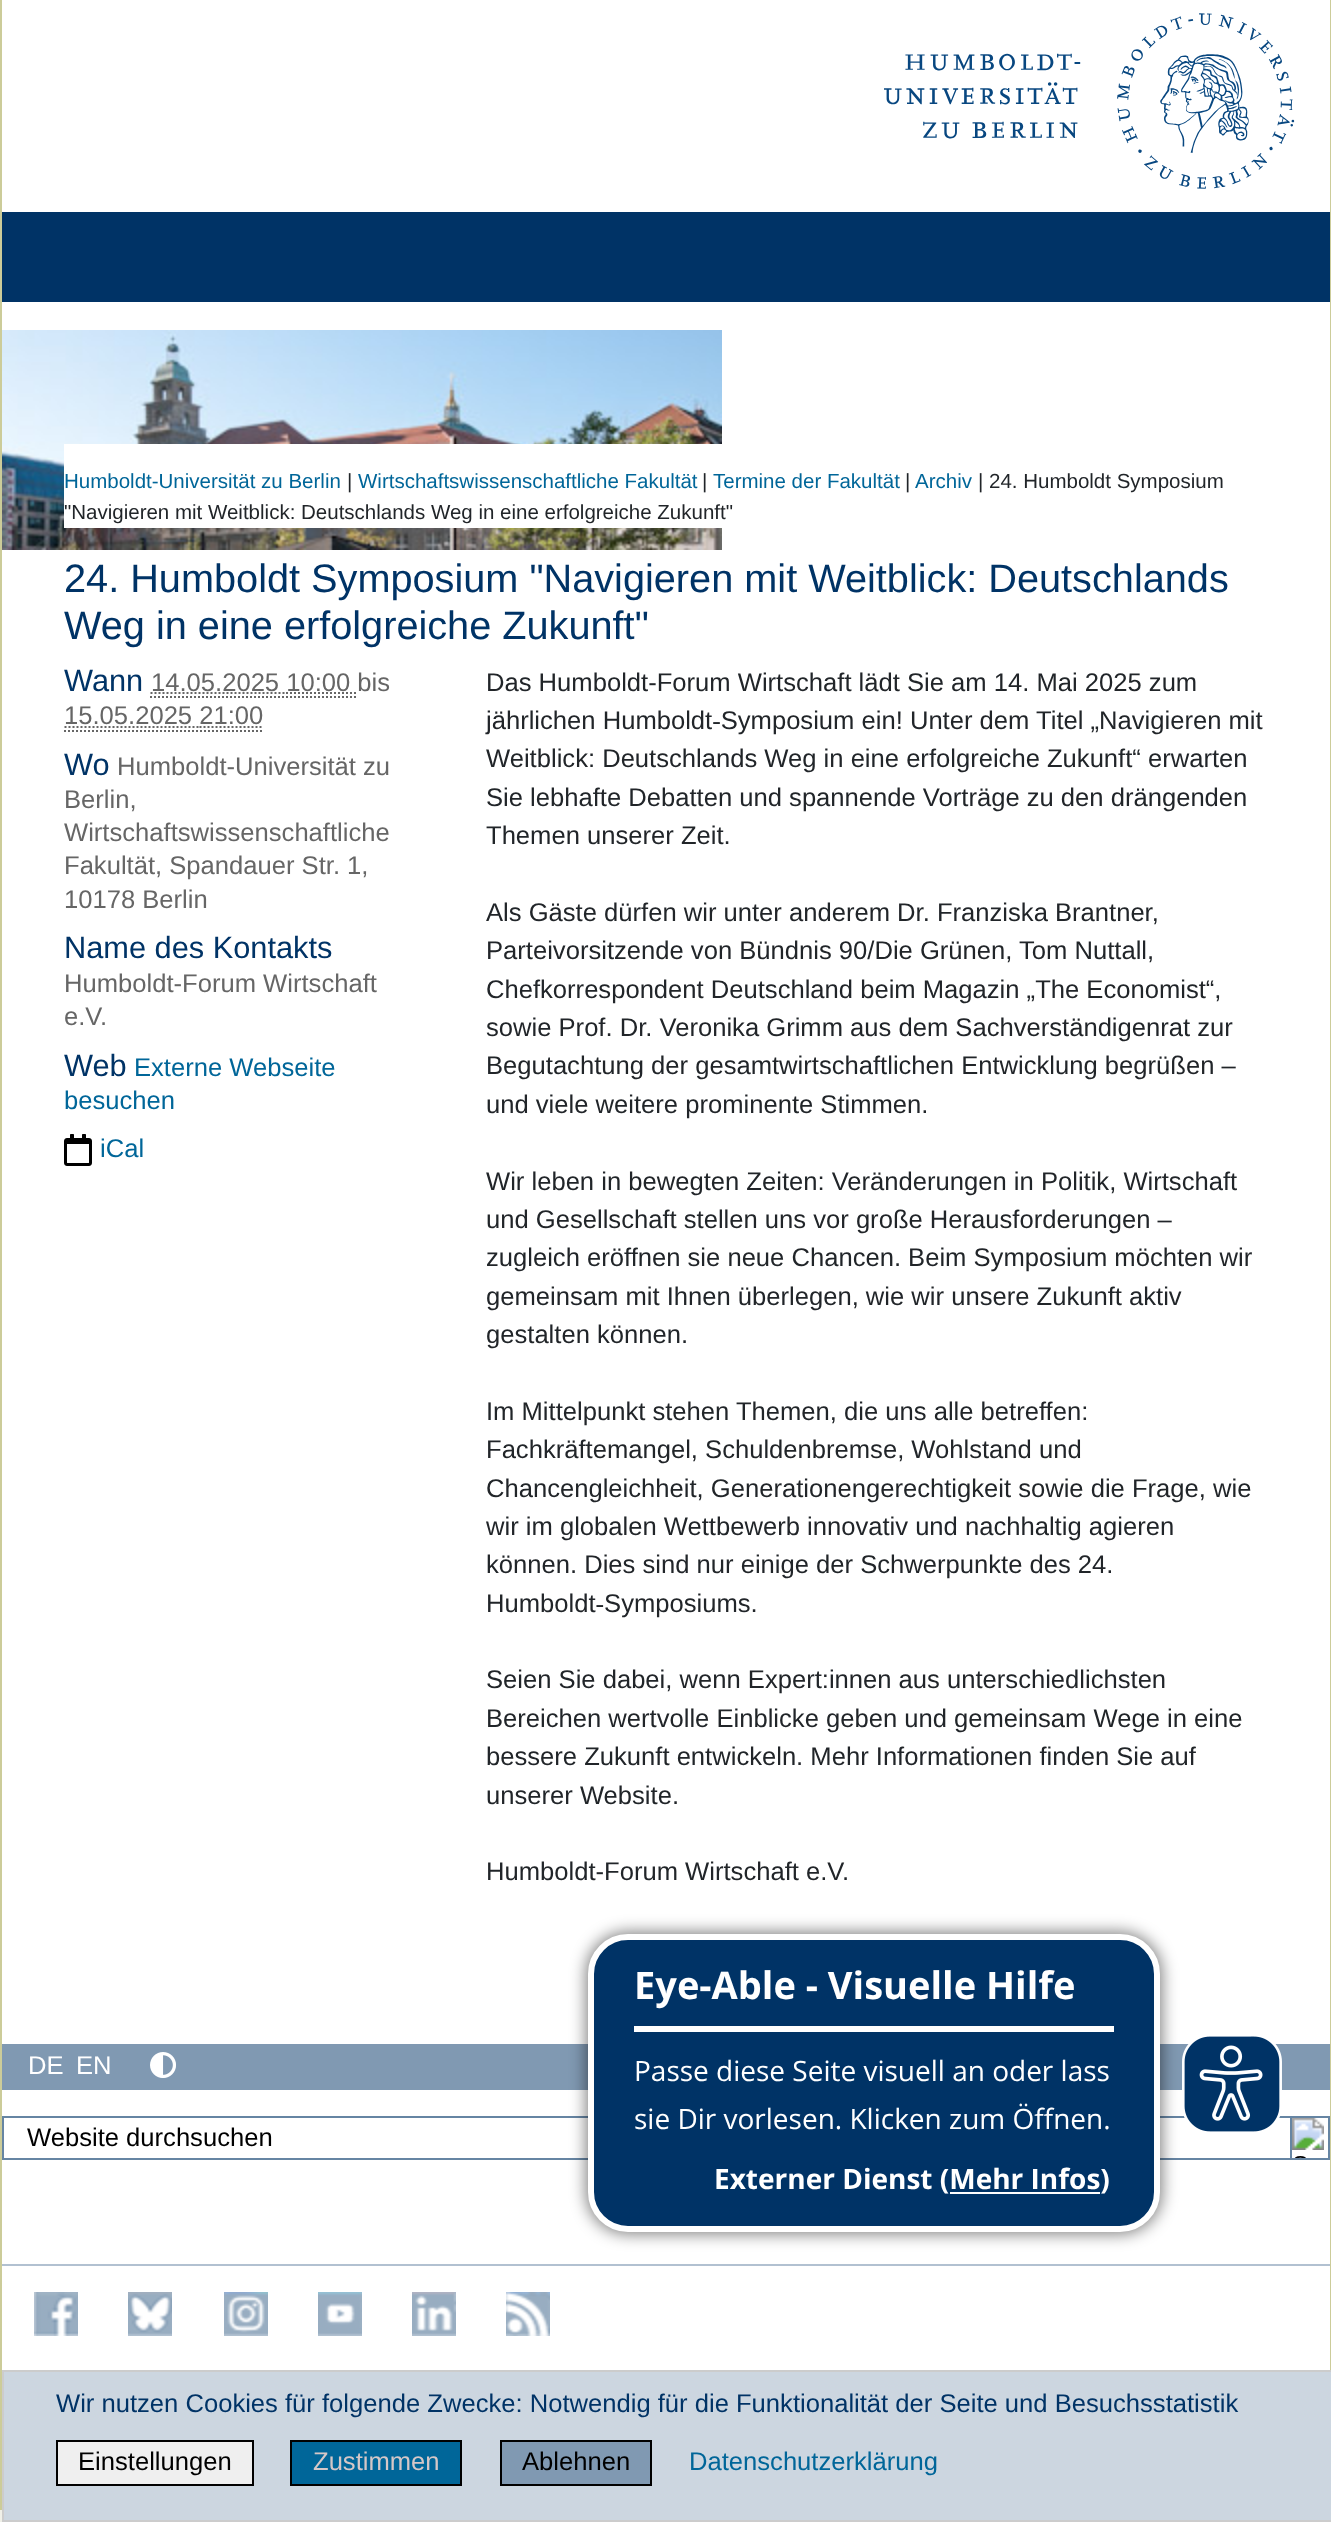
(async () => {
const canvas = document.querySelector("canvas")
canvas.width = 1331
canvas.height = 2522
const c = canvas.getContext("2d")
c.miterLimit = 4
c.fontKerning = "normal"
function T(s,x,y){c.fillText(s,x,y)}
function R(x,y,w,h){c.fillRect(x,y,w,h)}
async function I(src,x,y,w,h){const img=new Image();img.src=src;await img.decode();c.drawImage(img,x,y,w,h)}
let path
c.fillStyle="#f0f0e8"
R(0,0,1331,2522)
c.fillStyle="#fff"
R(2,0,1328,2370)
await I("1.png",884,13,411,176)
c.fillStyle="#036"
R(2,212,1328,90)
await I("2.png",2,330,720,220)
c.fillStyle="#cc9"
R(1330,0,1,2370)
R(0,0,2,2510)
c.fillStyle="#fff"
R(64,444,658,84)
c.font="20.5px Liberation Sans"
c.fillStyle="#069"
T("Humboldt-Universität zu Berlin",64,488)
c.fillStyle="#212529"
T("|",347,488)
c.fillStyle="#069"
T("Wirtschaftswissenschaftliche Fakultät",358,488)
c.fillStyle="#212529"
T("|",702,488)
c.fillStyle="#069"
T("Termine der Fakultät",713,488)
c.fillStyle="#212529"
T("|",905,488)
c.fillStyle="#069"
T("Archiv",915,488)
c.fillStyle="#212529"
T("| 24. Humboldt Symposium",978,488)
T("\"Navigieren mit Weitblick: Deutschlands Weg in eine erfolgreiche Zukunft\"",64,519)
c.font="39.7px Liberation Sans"
c.fillStyle="#036"
T("24. Humboldt Symposium \"Navigieren mit Weitblick: Deutschlands",64,592)
T("Weg in eine erfolgreiche Zukunft\"",64,639)
c.font="30.75px Liberation Sans"
T("Wann",64,691)
c.font="25.6px Liberation Sans"
c.fillStyle="#666"
T("14.05.2025 10:00 bis",151,691)
path = new Path2D("M150 697h208")
c.strokeStyle="#666"
c.lineWidth=2
c.setLineDash([2,2])
c.stroke(path)
path = new Path2D("M150.5 693h135.5")
c.stroke(path)
path = new Path2D("M286 693h71")
c.stroke(path)
T("15.05.2025 21:00",64,724)
path = new Path2D("M64 731h200")
c.stroke(path)
path = new Path2D("M64.5 727h135")
c.stroke(path)
path = new Path2D("M199.5 727h64")
c.stroke(path)
c.font="30.75px Liberation Sans"
c.fillStyle="#036"
T("Wo",64,775)
c.font="25.6px Liberation Sans"
c.fillStyle="#666"
T("Humboldt-Universität zu",117,775)
T("Berlin,",64,808)
T("Wirtschaftswissenschaftliche",64,841)
T("Fakultät, Spandauer Str. 1,",64,874)
T("10178 Berlin",64,908)
c.font="30.75px Liberation Sans"
c.fillStyle="#036"
T("Name des Kontakts",64,958)
c.font="25.6px Liberation Sans"
c.fillStyle="#666"
T("Humboldt-Forum Wirtschaft",64,992)
T("e.V.",64,1025)
c.font="30.75px Liberation Sans"
c.fillStyle="#036"
T("Web",64,1076)
c.font="25.6px Liberation Sans"
c.fillStyle="#069"
T("Externe Webseite",134,1076)
T("besuchen",64,1109)
await I("3.png",64,1134,28,32)
T("iCal",100,1157)
c.fillStyle="#212529"
T("Das Humboldt-Forum Wirtschaft lädt Sie am 14. Mai 2025 zum",486,691)
T("jährlichen Humboldt‑Symposium ein! Unter dem Titel „Navigieren mit",486,729)
T("Weitblick: Deutschlands Weg in eine erfolgreiche Zukunft“ erwarten",486,767)
T("Sie lebhafte Debatten und spannende Vorträge zu den drängenden",486,806)
T("Themen unserer Zeit.",486,844)
T("Als Gäste dürfen wir unter anderem Dr. Franziska Brantner,",486,921)
T("Parteivorsitzende von Bündnis 90/Die Grünen, Tom Nuttall,",486,959)
T("Chefkorrespondent Deutschland beim Magazin „The Economist“,",486,998)
T("sowie Prof. Dr. Veronika Grimm aus dem Sachverständigenrat zur",486,1036)
T("Begutachtung der gesamtwirtschaftlichen Entwicklung begrüßen –",486,1074)
T("und viele weitere prominente Stimmen.",486,1113)
T("Wir leben in bewegten Zeiten: Veränderungen in Politik, Wirtschaft",486,1190)
T("und Gesellschaft stellen uns vor große Herausforderungen –",486,1228)
T("zugleich eröffnen sie neue Chancen. Beim Symposium möchten wir",486,1266)
T("gemeinsam mit Ihnen überlegen, wie wir unsere Zukunft aktiv",486,1305)
T("gestalten können.",486,1343)
T("Im Mittelpunkt stehen Themen, die uns alle betreffen:",486,1420)
T("Fachkräftemangel, Schuldenbremse, Wohlstand und",486,1458)
T("Chancengleichheit, Generationengerechtigkeit sowie die Frage, wie",486,1497)
T("wir im globalen Wettbewerb innovativ und nachhaltig agieren",486,1535)
T("können. Dies sind nur einige der Schwerpunkte des 24.",486,1573)
T("Humboldt‑Symposiums.",486,1612)
T("Seien Sie dabei, wenn Expert:innen aus unterschiedlichsten",486,1688)
T("Bereichen wertvolle Einblicke geben und gemeinsam Wege in eine",486,1727)
T("bessere Zukunft entwickeln. Mehr Informationen finden Sie auf",486,1765)
T("unserer Website.",486,1804)
T("Humboldt-Forum Wirtschaft e.V.",486,1880)
c.fillStyle="#8099b2"
R(2,2044,1328,46)
c.fillStyle="#fff"
T("DE",28,2074)
T("EN",76,2074)
await I("4.png",150,2052,26,26)
c.strokeStyle="#6685a3"
c.setLineDash([])
c.strokeRect(3,2117,1326,42)
c.fillStyle="#000"
T("Website durchsuchen",27,2146)
c.strokeRect(1291,2117,38,42)
await I("5.png",1292,2118,32,40)
c.fillStyle="#00000080"
c.filter="blur(8px)"
c.beginPath()
c.roundRect(586,1932,576,302,42)
c.fill()
c.filter="none"
c.fillStyle="#036"
c.beginPath()
c.roundRect(591,1937,566,292,37)
c.fill()
c.strokeStyle="#fff"
c.lineWidth=6
c.stroke()
c.fillStyle="#fff"
R(634,2026,480,6)
c.font="bold 38px Open Sans"
T("Eye-Able - Visuelle Hilfe",634,1999)
c.font="28px Open Sans"
T("Passe diese Seite visuell an oder lass",634,2081)
T("sie Dir vorlesen. Klicken zum Öffnen.",634,2129)
c.font="bold 28px Open Sans"
T("Externer Dienst (Mehr Infos)",714,2189)
R(950,2192,150,2)
await I("6.png",1182,2036,100,96)
c.fillStyle="#b2c1d1"
R(2,2264,1328,2)
await I("7.png",34,2292,44,44)
await I("8.png",128,2292,44,44)
await I("9.png",224,2292,44,44)
await I("10.png",318,2292,44,44)
await I("11.png",412,2292,44,44)
await I("12.png",506,2292,44,44)
c.fillStyle="#ccd6e0"
c.beginPath()
c.rect(3,2371,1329,150)
c.fill()
c.strokeStyle="#ccc"
c.lineWidth=2
c.stroke()
c.font="25.6px Liberation Sans"
c.fillStyle="#036"
T("Wir nutzen Cookies für folgende Zwecke: Notwendig für die Funktionalität der Seite und Besuchsstatistik",56,2412)
c.fillStyle="#efefef"
c.beginPath()
c.rect(57,2441,196,44)
c.fill()
c.strokeStyle="#000"
c.stroke()
c.fillStyle="#000"
T("Einstellungen",78,2470)
c.fillStyle="#069"
c.beginPath()
c.rect(291,2441,170,44)
c.fill()
c.stroke()
c.fillStyle="#d5c7c7"
T("Zustimmen",313,2470)
c.fillStyle="#8099b2"
c.beginPath()
c.rect(501,2441,150,44)
c.fill()
c.stroke()
c.fillStyle="#000"
T("Ablehnen",522,2470)
c.fillStyle="#069"
T("Datenschutzerklärung",689,2470)
})()
